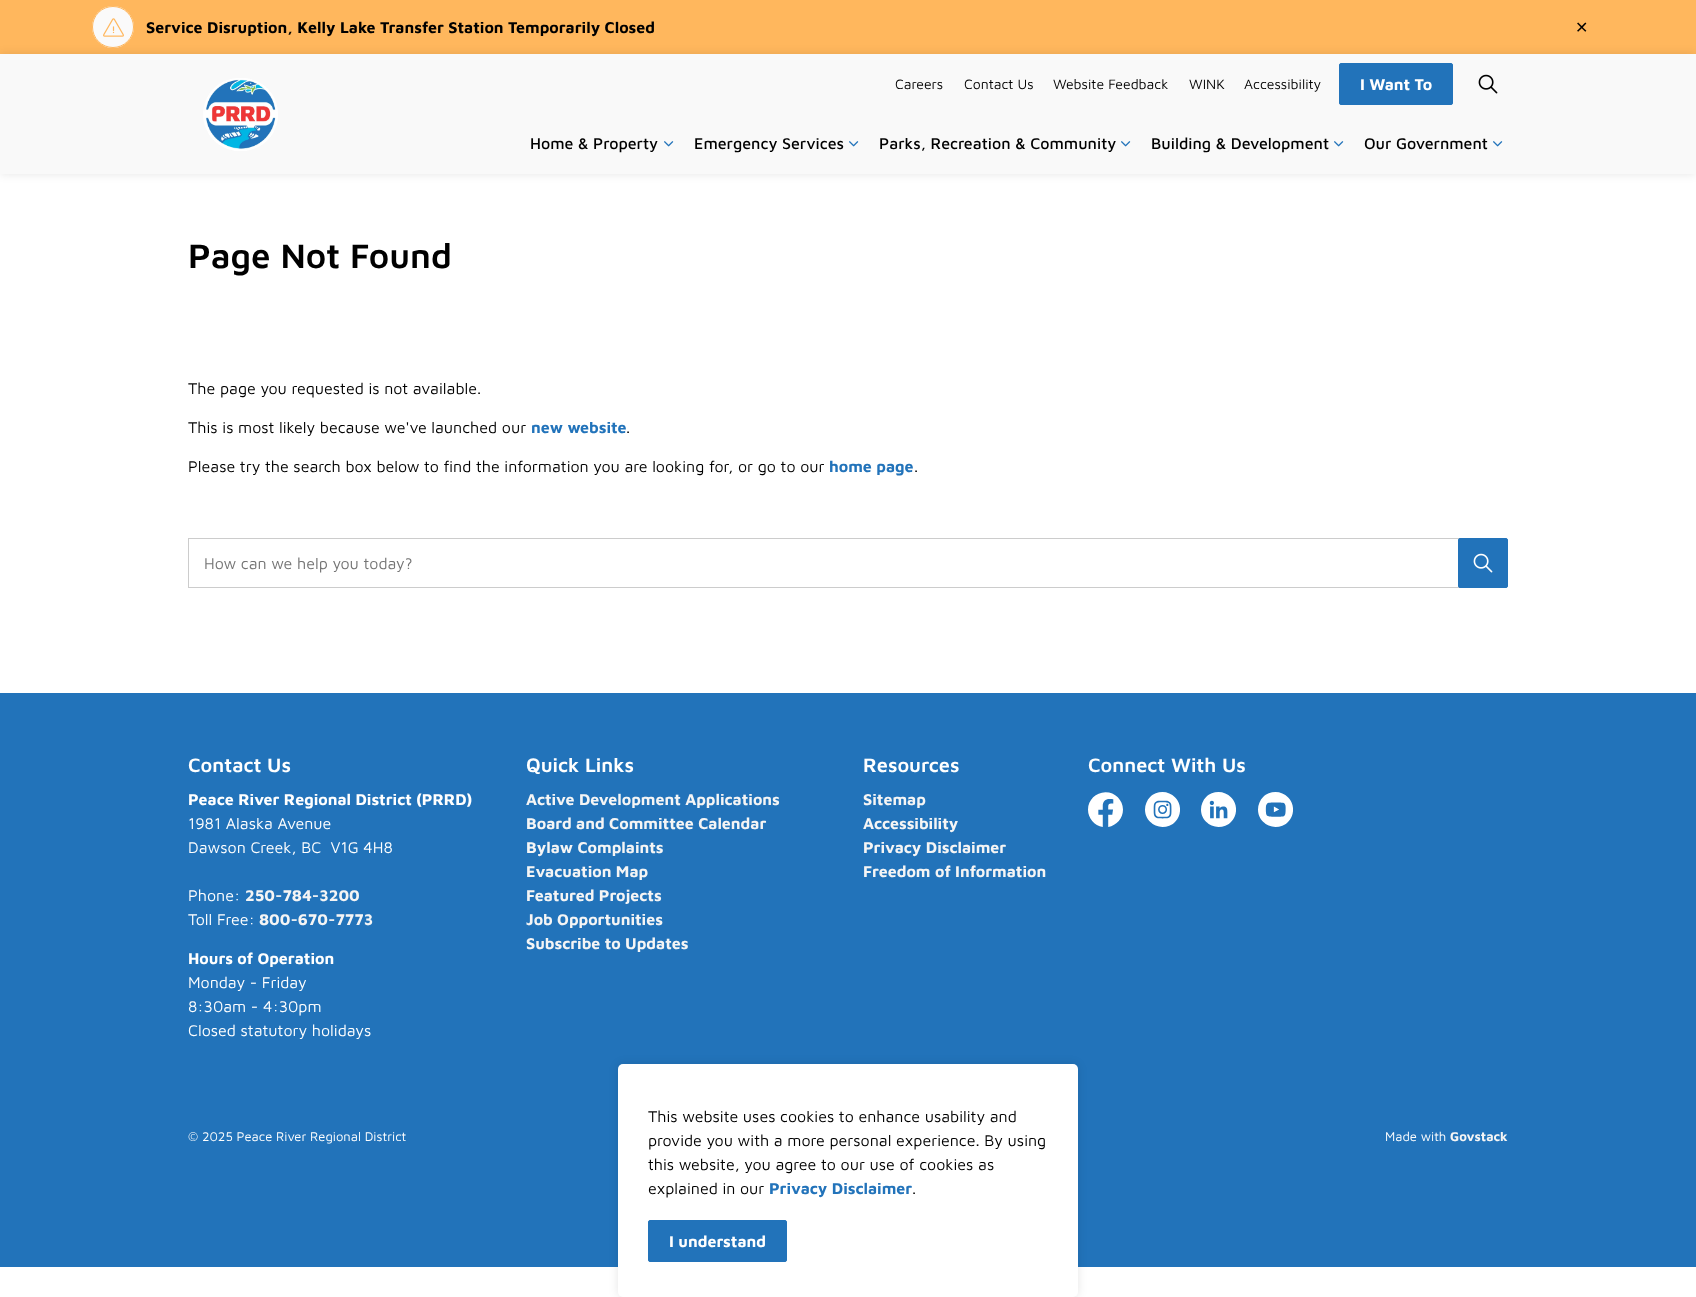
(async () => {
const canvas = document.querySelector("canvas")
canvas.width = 1696
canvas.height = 1297
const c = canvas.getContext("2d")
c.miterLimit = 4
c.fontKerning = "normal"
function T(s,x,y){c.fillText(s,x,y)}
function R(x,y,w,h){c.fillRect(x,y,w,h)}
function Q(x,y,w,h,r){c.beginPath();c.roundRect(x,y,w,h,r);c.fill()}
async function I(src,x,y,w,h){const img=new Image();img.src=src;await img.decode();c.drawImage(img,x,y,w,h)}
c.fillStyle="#fff"
R(0,0,1696,1297)
c.fillStyle="#ffb75d"
R(0,0,1696,54)
c.fillStyle="#fafafa"
c.beginPath()
c.arc(113,27,21,0,7)
c.fill()
await I("1.png",103,18,21,19)
c.beginPath()
c.arc(113,27,20.5,0,7)
c.strokeStyle="#ffb75d"
c.stroke()
c.font="bold 16px Maven Pro"
c.fillStyle="#000"
T("Service Disruption, Kelly Lake Transfer Station Temporarily Closed",146,33)
c.font="16px DejaVu Sans"
T("✕",1575,33)
c.fillStyle="#0000001a"
c.filter="blur(5px)"
c.beginPath()
c.rect(0,54,1696,120)
c.fill()
c.filter="none"
c.fillStyle="#f9f9f9"
R(0,54,1696,120)
await I("2.png",203,78,75,73)
c.font="14px Maven Pro"
c.fillStyle="#000"
T("Careers",895,89)
T("Contact Us",964,89)
T("Website Feedback",1053,89)
T("WINK",1189,89)
T("Accessibility",1244,89)
c.fillStyle="#2273ba"
c.beginPath()
c.roundRect(1339.5,63.5,113,41,1.5)
c.fill()
c.strokeStyle="#2273ba"
c.stroke()
c.font="bold 16px Maven Pro"
c.fillStyle="#fff"
T("I Want To",1360,90)
await I("3.png",1478,74,20,20)
c.font="500 16px Maven Pro"
c.fillStyle="#000"
T("Home & Property",530,149)
await I("4.png",664,141,10,6)
T("Emergency Services",694,149)
await I("4.png",849,141,10,6)
T("Parks, Recreation & Community",879,149)
await I("4.png",1121,141,10,6)
T("Building & Development",1151,149)
await I("4.png",1334,141,10,6)
T("Our Government",1364,149)
await I("4.png",1493,141,10,6)
c.font="600 35px Maven Pro"
T("Page Not Found",188,268)
c.font="16px Maven Pro"
T("The page you requested is not available.",188,394)
T("This is most likely because we've launched our",188,433)
c.font="bold 16px Maven Pro"
c.fillStyle="#2273ba"
T("new website",531,433)
c.font="16px Maven Pro"
c.fillStyle="#000"
T(".",626,433)
T("Please try the search box below to find the information you are looking for, or go to our",188,472)
c.font="bold 16px Maven Pro"
c.fillStyle="#2273ba"
T("home page",829,472)
c.font="16px Maven Pro"
c.fillStyle="#000"
T(".",914,472)
c.strokeStyle="#ccc"
c.strokeRect(188.5,538.5,1306,49)
c.fillStyle="#757575"
T("How can we help you today?",204,569)
c.fillStyle="#2273ba"
c.beginPath()
c.roundRect(1458.5,538.5,49,49,1.5)
c.fill()
c.strokeStyle="#2273ba"
c.stroke()
await I("5.png",1473,553,20,20)
R(0,693,1696,574)
c.font="600 20px Maven Pro"
c.fillStyle="#fff"
T("Contact Us",188,772)
c.font="bold 16px Maven Pro"
T("Peace River Regional District (PRRD)",188,805)
c.font="16px Maven Pro"
T("1981 Alaska Avenue",188,829)
T("Dawson Creek, BC  V1G 4H8",188,853)
T("Phone:",188,901)
c.font="bold 16px Maven Pro"
c.fillStyle="#f5f5f5"
T("250-784-3200",245,901)
c.font="16px Maven Pro"
c.fillStyle="#fff"
T("Toll Free:",188,925)
c.font="bold 16px Maven Pro"
c.fillStyle="#f5f5f5"
T("800-670-7773",259,925)
c.fillStyle="#fff"
T("Hours of Operation",188,964)
c.font="16px Maven Pro"
T("Monday - Friday",188,988)
T("8:30am - 4:30pm",188,1012)
T("Closed statutory holidays",188,1036)
c.font="600 20px Maven Pro"
T("Quick Links",526,772)
c.font="bold 16px Maven Pro"
c.fillStyle="#f5f5f5"
T("Active Development Applications",526,805)
T("Board and Committee Calendar",526,829)
T("Bylaw Complaints",526,853)
T("Evacuation Map",526,877)
T("Featured Projects",526,901)
T("Job Opportunities",526,925)
T("Subscribe to Updates",526,949)
c.font="600 20px Maven Pro"
c.fillStyle="#fff"
T("Resources",863,772)
c.font="bold 16px Maven Pro"
c.fillStyle="#f5f5f5"
T("Sitemap",863,805)
T("Accessibility",863,829)
T("Privacy Disclaimer",863,853)
T("Freedom of Information",863,877)
c.font="600 20px Maven Pro"
c.fillStyle="#fff"
T("Connect With Us",1088,772)
await I("6.png",1088,792,35,35)
await I("7.png",1145,792,35,35)
await I("8.png",1201,792,35,35)
await I("9.png",1258,792,35,35)
c.font="13px Maven Pro"
T("© 2025 Peace River Regional District",188,1141)
T("Made with",1385,1141)
c.font="bold 13px Maven Pro"
c.fillStyle="#f5f5f5"
T("Govstack",1450,1141)
c.fillStyle="#0000001a"
c.filter="blur(5px)"
c.beginPath()
c.roundRect(618,1064,460,233,5)
c.fill()
c.filter="none"
c.fillStyle="#fff"
Q(618,1064,460,233,5)
c.font="16px Maven Pro"
c.fillStyle="#000"
T("This website uses cookies to enhance usability and",648,1122)
T("provide you with a more personal experience. By using",648,1146)
T("this website, you agree to our use of cookies as",648,1170)
T("explained in our",648,1194)
c.font="bold 16px Maven Pro"
c.fillStyle="#2273ba"
T("Privacy Disclaimer",769,1194)
c.font="16px Maven Pro"
c.fillStyle="#000"
T(".",912,1194)
c.fillStyle="#2273ba"
c.beginPath()
c.roundRect(648.5,1220.5,138,41,1.5)
c.fill()
c.stroke()
c.font="bold 16px Maven Pro"
c.fillStyle="#fff"
T("I understand",669,1247)
})()
